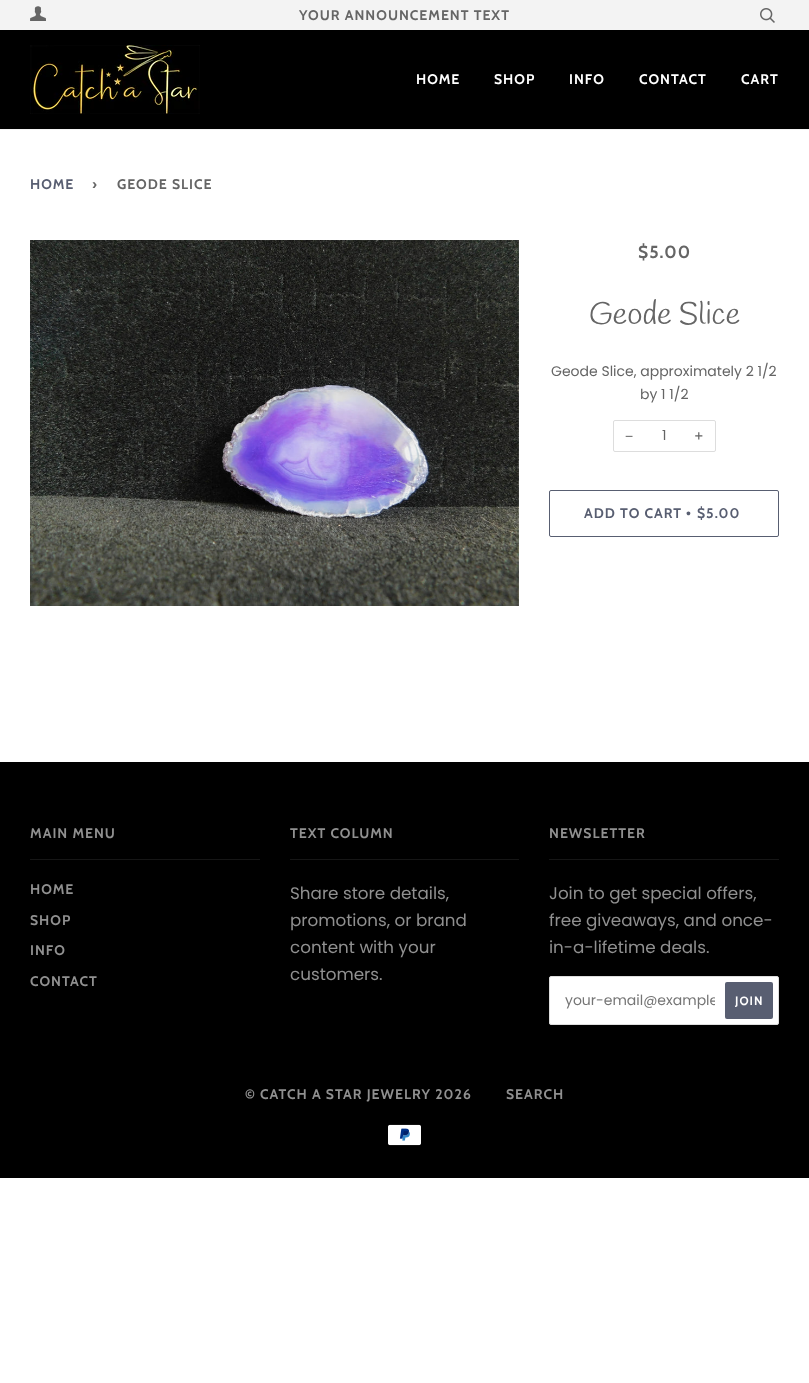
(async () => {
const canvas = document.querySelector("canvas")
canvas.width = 809
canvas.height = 1383
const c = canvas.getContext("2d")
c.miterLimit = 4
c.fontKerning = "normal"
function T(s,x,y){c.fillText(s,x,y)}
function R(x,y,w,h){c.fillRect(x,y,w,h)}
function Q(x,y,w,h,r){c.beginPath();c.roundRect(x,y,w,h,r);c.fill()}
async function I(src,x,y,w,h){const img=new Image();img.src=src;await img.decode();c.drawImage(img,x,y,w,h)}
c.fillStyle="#fff"
R(0,0,809,1383)
c.fillStyle="#f3f3f3"
R(0,0,809,30)
await I("1.png",30,6,16,15)
c.letterSpacing="1px"
c.font="bold 14px Cabin"
c.fillStyle="#656565"
T("YOUR ANNOUNCEMENT TEXT",299,20)
await I("2.png",760,8,15,15)
c.fillStyle="#000"
R(0,30,809,99)
c.fillStyle="#f3f3f3"
R(0,129,809,1)
await I("3.png",30,45,170,69)
c.fillStyle="#fff"
T("HOME",416,84)
T("SHOP",494,84)
T("INFO",569,84)
T("CONTACT",639,84)
T("CART",741,84)
c.fillStyle="#585e71"
T("HOME",30,189)
c.fillStyle="#656565"
T("›",92,189)
T("GEODE SLICE",117,189)
await I("4.png",30,240,489,366)
c.font="bold 17.5px Cabin"
T("$5.00",638,258)
c.letterSpacing="0px"
c.font="31px Handlee"
T("Geode Slice",589,324)
c.font="14px Poppins"
T("Geode Slice, approximately 2 1/2",551,376)
T("by 1 1/2",640,399)
c.beginPath()
c.roundRect(613.5,420.5,102,31,1.5)
c.strokeStyle="#ddd"
c.stroke()
c.font="14px Liberation Sans"
T("−",625,441)
c.font="14px Poppins"
T("1",662,440)
T("+",694,441)
c.beginPath()
c.roundRect(549.5,490.5,229,46,1.5)
c.strokeStyle="#585e71"
c.stroke()
c.letterSpacing="1px"
c.font="bold 14px Cabin"
c.fillStyle="#585e71"
T("ADD TO CART",584,518)
c.font="bold 14px Liberation Serif"
T("•",686,518)
c.font="bold 14px Cabin"
T("$5.00",697,518)
c.fillStyle="#000"
R(0,762,809,416)
c.fillStyle="#909090"
T("MAIN MENU",30,838)
c.fillStyle="#161616"
R(30,859,230,1)
c.fillStyle="#909090"
T("HOME",30,894)
T("SHOP",30,925)
T("INFO",30,955)
T("CONTACT",30,986)
T("TEXT COLUMN",290,838)
c.fillStyle="#161616"
R(290,859,229,1)
c.letterSpacing="0px"
c.font="16.75px Poppins"
c.fillStyle="#909090"
T("Share store details,",290,899)
T("promotions, or brand",290,926)
T("content with your",290,953)
T("customers.",290,980)
c.letterSpacing="1px"
c.font="bold 14px Cabin"
T("NEWSLETTER",549,838)
c.fillStyle="#161616"
R(549,859,230,1)
c.letterSpacing="0px"
c.font="16.75px Poppins"
c.fillStyle="#909090"
T("Join to get special offers,",549,899)
T("free giveaways, and once-",549,926)
T("in-a-lifetime deals.",549,953)
c.fillStyle="#fff"
c.beginPath()
c.roundRect(549.5,976.5,229,48,1.5)
c.fill()
c.strokeStyle="#ddd"
c.stroke()
c.save()
c.beginPath()
c.rect(565,990,150,21)
c.clip()
c.font="14px Poppins"
c.fillStyle="#757575"
T("your-email@example",565,1005)
c.restore()
c.fillStyle="#585e71"
Q(725,982,48,37,2)
c.letterSpacing="1px"
c.font="bold 12px Cabin"
c.fillStyle="#fff"
T("JOIN",735,1005)
c.font="bold 14px Cabin"
c.fillStyle="#909090"
T("© CATCH A STAR JEWELRY 2026",245,1099)
T("SEARCH",506,1099)
await I("5.png",388,1124,33,22)
})()
